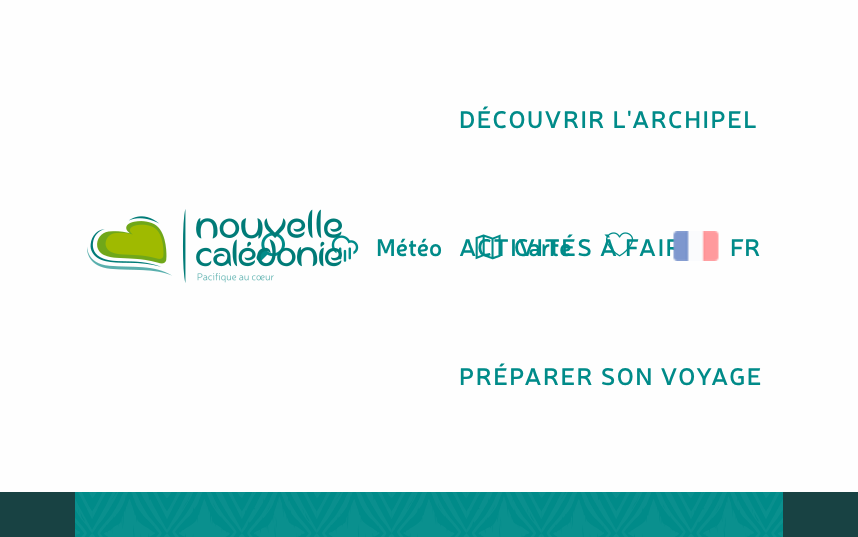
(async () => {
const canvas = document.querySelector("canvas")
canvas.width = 858
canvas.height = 537
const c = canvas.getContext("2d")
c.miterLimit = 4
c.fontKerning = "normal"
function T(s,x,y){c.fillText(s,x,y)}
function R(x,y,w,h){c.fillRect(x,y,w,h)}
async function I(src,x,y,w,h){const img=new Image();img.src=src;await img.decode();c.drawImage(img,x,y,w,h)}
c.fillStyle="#184243"
R(0,0,858,537)
c.fillStyle="#fefefe"
R(0,0,858,492)
c.letterSpacing="1.5px"
c.font="600 24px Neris"
c.fillStyle="#008b89"
T("DÉCOUVRIR L'ARCHIPEL",459,128)
await I("2.png",256,232,29,29)
await I("3.png",331,235,28,27)
await I("1.png",87,209,255,74)
T("ACTIVITÉS À FAIR",459,256)
T("PRÉPARER SON VOYAGE",459,385)
c.letterSpacing="0px"
T("Météo",376,256)
await I("4.png",475,234,26,26)
T("Carte",514,256)
await I("5.png",606,232,28,25)
await I("6.png",673,231,46,30)
T("FR",730,256)
await I("7.png",75,492,708,45)
})()
